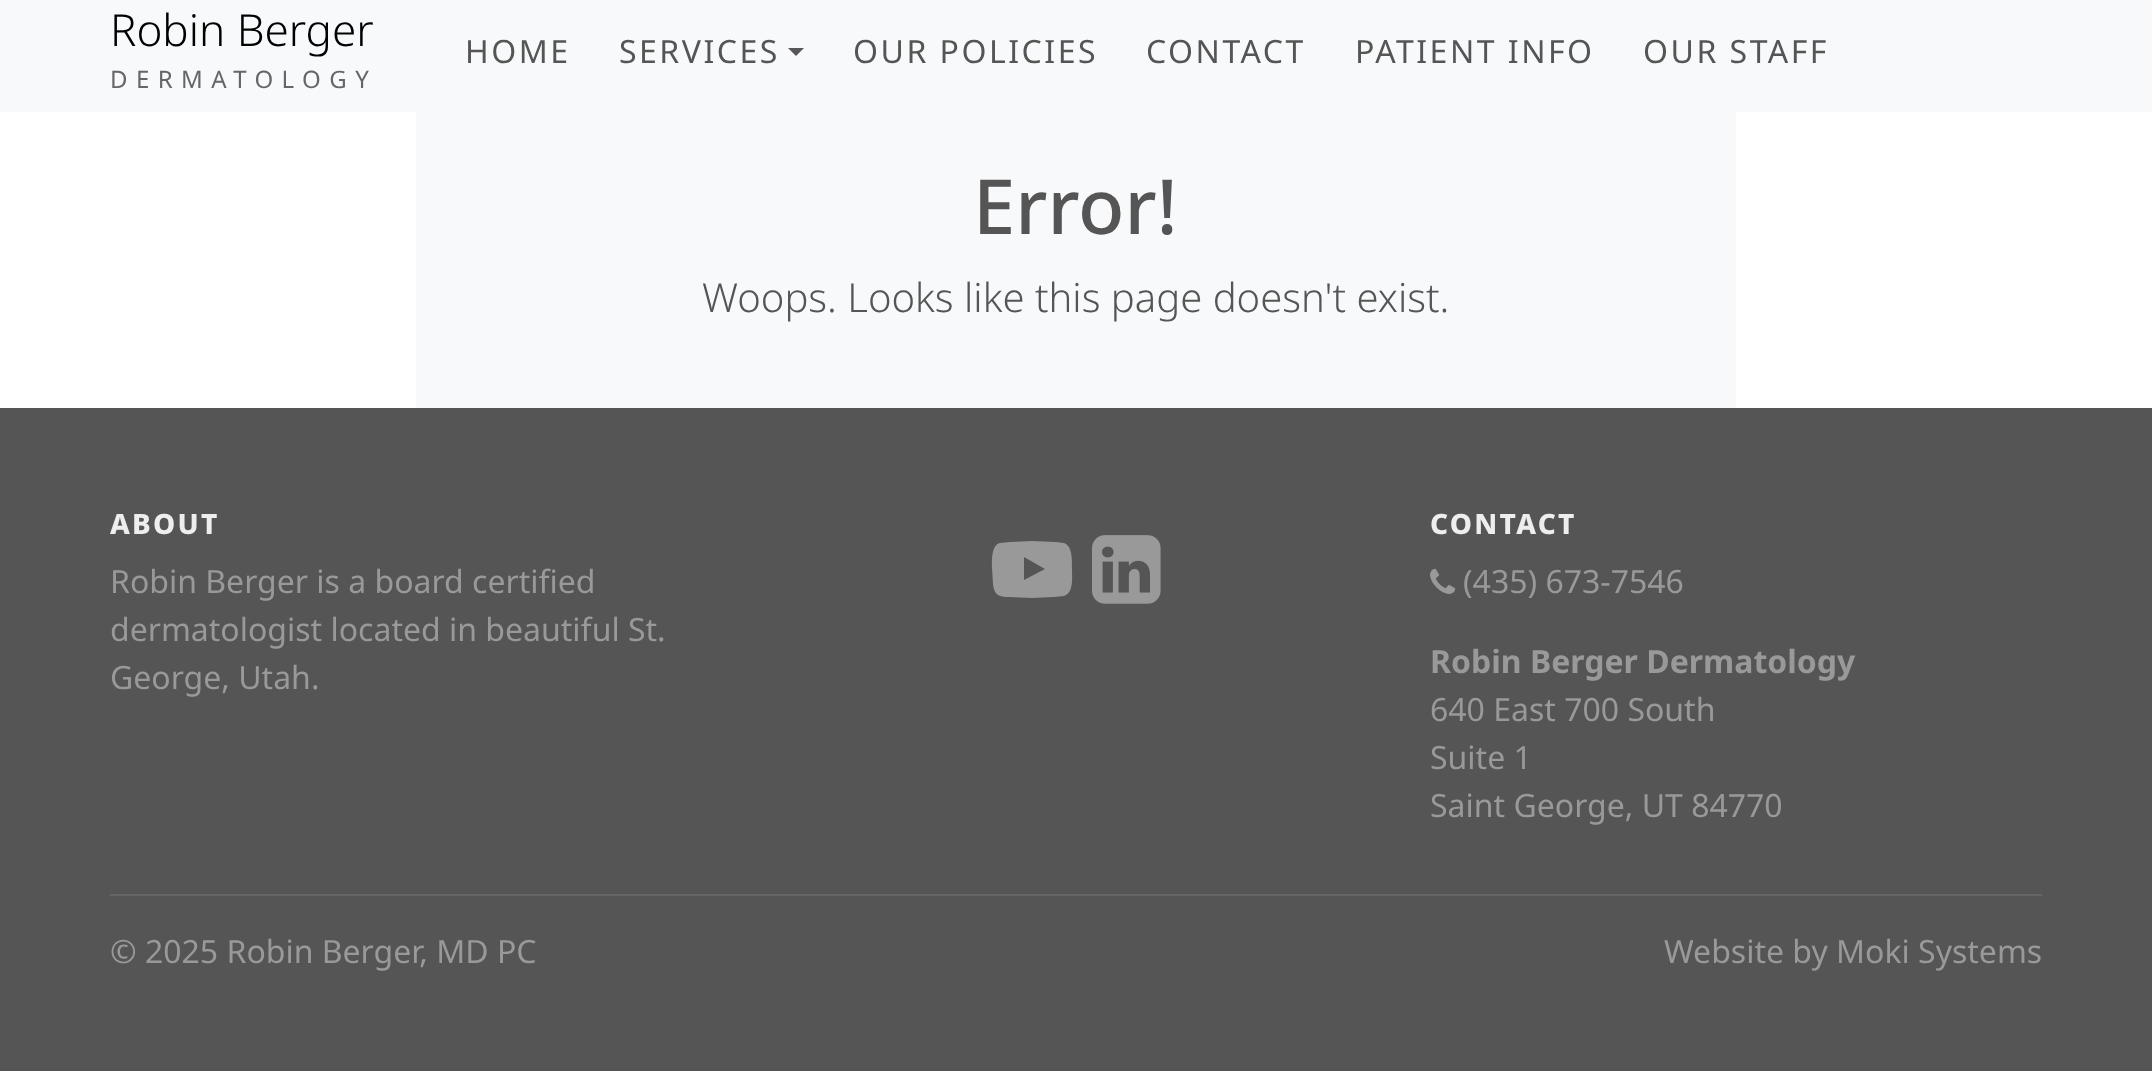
(async () => {
const canvas = document.querySelector("canvas")
canvas.width = 2152
canvas.height = 1071
const c = canvas.getContext("2d")
c.miterLimit = 4
c.fontKerning = "normal"
function T(s,x,y){c.fillText(s,x,y)}
function R(x,y,w,h){c.fillRect(x,y,w,h)}
async function I(src,x,y,w,h){const img=new Image();img.src=src;await img.decode();c.drawImage(img,x,y,w,h)}
let path
c.fillStyle="#fff"
R(0,0,2152,1071)
c.fillStyle="#f8f9fa"
R(0,0,2152,112)
c.font="300 44px Noto Sans"
c.fillStyle="#000"
T("Robin Berger",110,46)
c.letterSpacing="8.4px"
c.font="24px Noto Sans"
c.fillStyle="#666"
T("DERMATOLOGY",110,88)
c.letterSpacing="2.5px"
c.font="32px Noto Sans"
c.fillStyle="#555"
T("HOME",465,63)
T("SERVICES",619,63)
c.fillStyle="#575758"
path = new Path2D("M788 48h16l-8 8z")
c.fill(path)
c.fillStyle="#555"
T("OUR POLICIES",853,63)
T("CONTACT",1146,63)
T("PATIENT INFO",1355,63)
T("OUR STAFF",1643,63)
c.fillStyle="#f8f9fa"
R(416,112,1320,296)
c.letterSpacing="0px"
c.font="500 76px Noto Sans"
c.fillStyle="#555"
T("Error!",973,234)
c.font="300 40px Noto Sans"
T("Woops. Looks like this page doesn't exist.",702,312)
R(0,408,2152,663)
c.letterSpacing="2.25px"
c.font="800 28px Noto Sans"
c.fillStyle="#eee"
T("ABOUT",110,534)
c.letterSpacing="0px"
c.font="32px Noto Sans"
c.fillStyle="#999"
T("Robin Berger is a board certified",110,593)
T("dermatologist located in beautiful St.",110,641)
T("George, Utah.",110,689)
path = new Path2D("M1024 580l21-11l-21-12zm8-39l24 1l8 1c9 3 8 19 8 26c0 8 2 24-8 27l-10 1l-22 1l-23-1c-10 0-15-2-16-13l-1-16c0-7-1-23 8-25l10-1z")
c.fill(path)
await I("1.png",1092,535,69,69)
c.letterSpacing="2.25px"
c.font="800 28px Noto Sans"
c.fillStyle="#eee"
T("CONTACT",1430,534)
await I("2.png",1430,568,26,26)
c.letterSpacing="0px"
c.font="32px Noto Sans"
c.fillStyle="#999"
T("(435) 673-7546",1463,593)
c.font="bold 32px Noto Sans"
T("Robin Berger Dermatology",1430,673)
c.font="32px Noto Sans"
T("640 East 700 South",1430,721)
T("Suite 1",1430,769)
T("Saint George, UT 84770",1430,817)
c.fillStyle="#666"
R(110,894,1932,2)
c.fillStyle="#999"
T("© 2025 Robin Berger, MD PC",110,963)
T("Website by Moki Systems",1664,963)
})()
